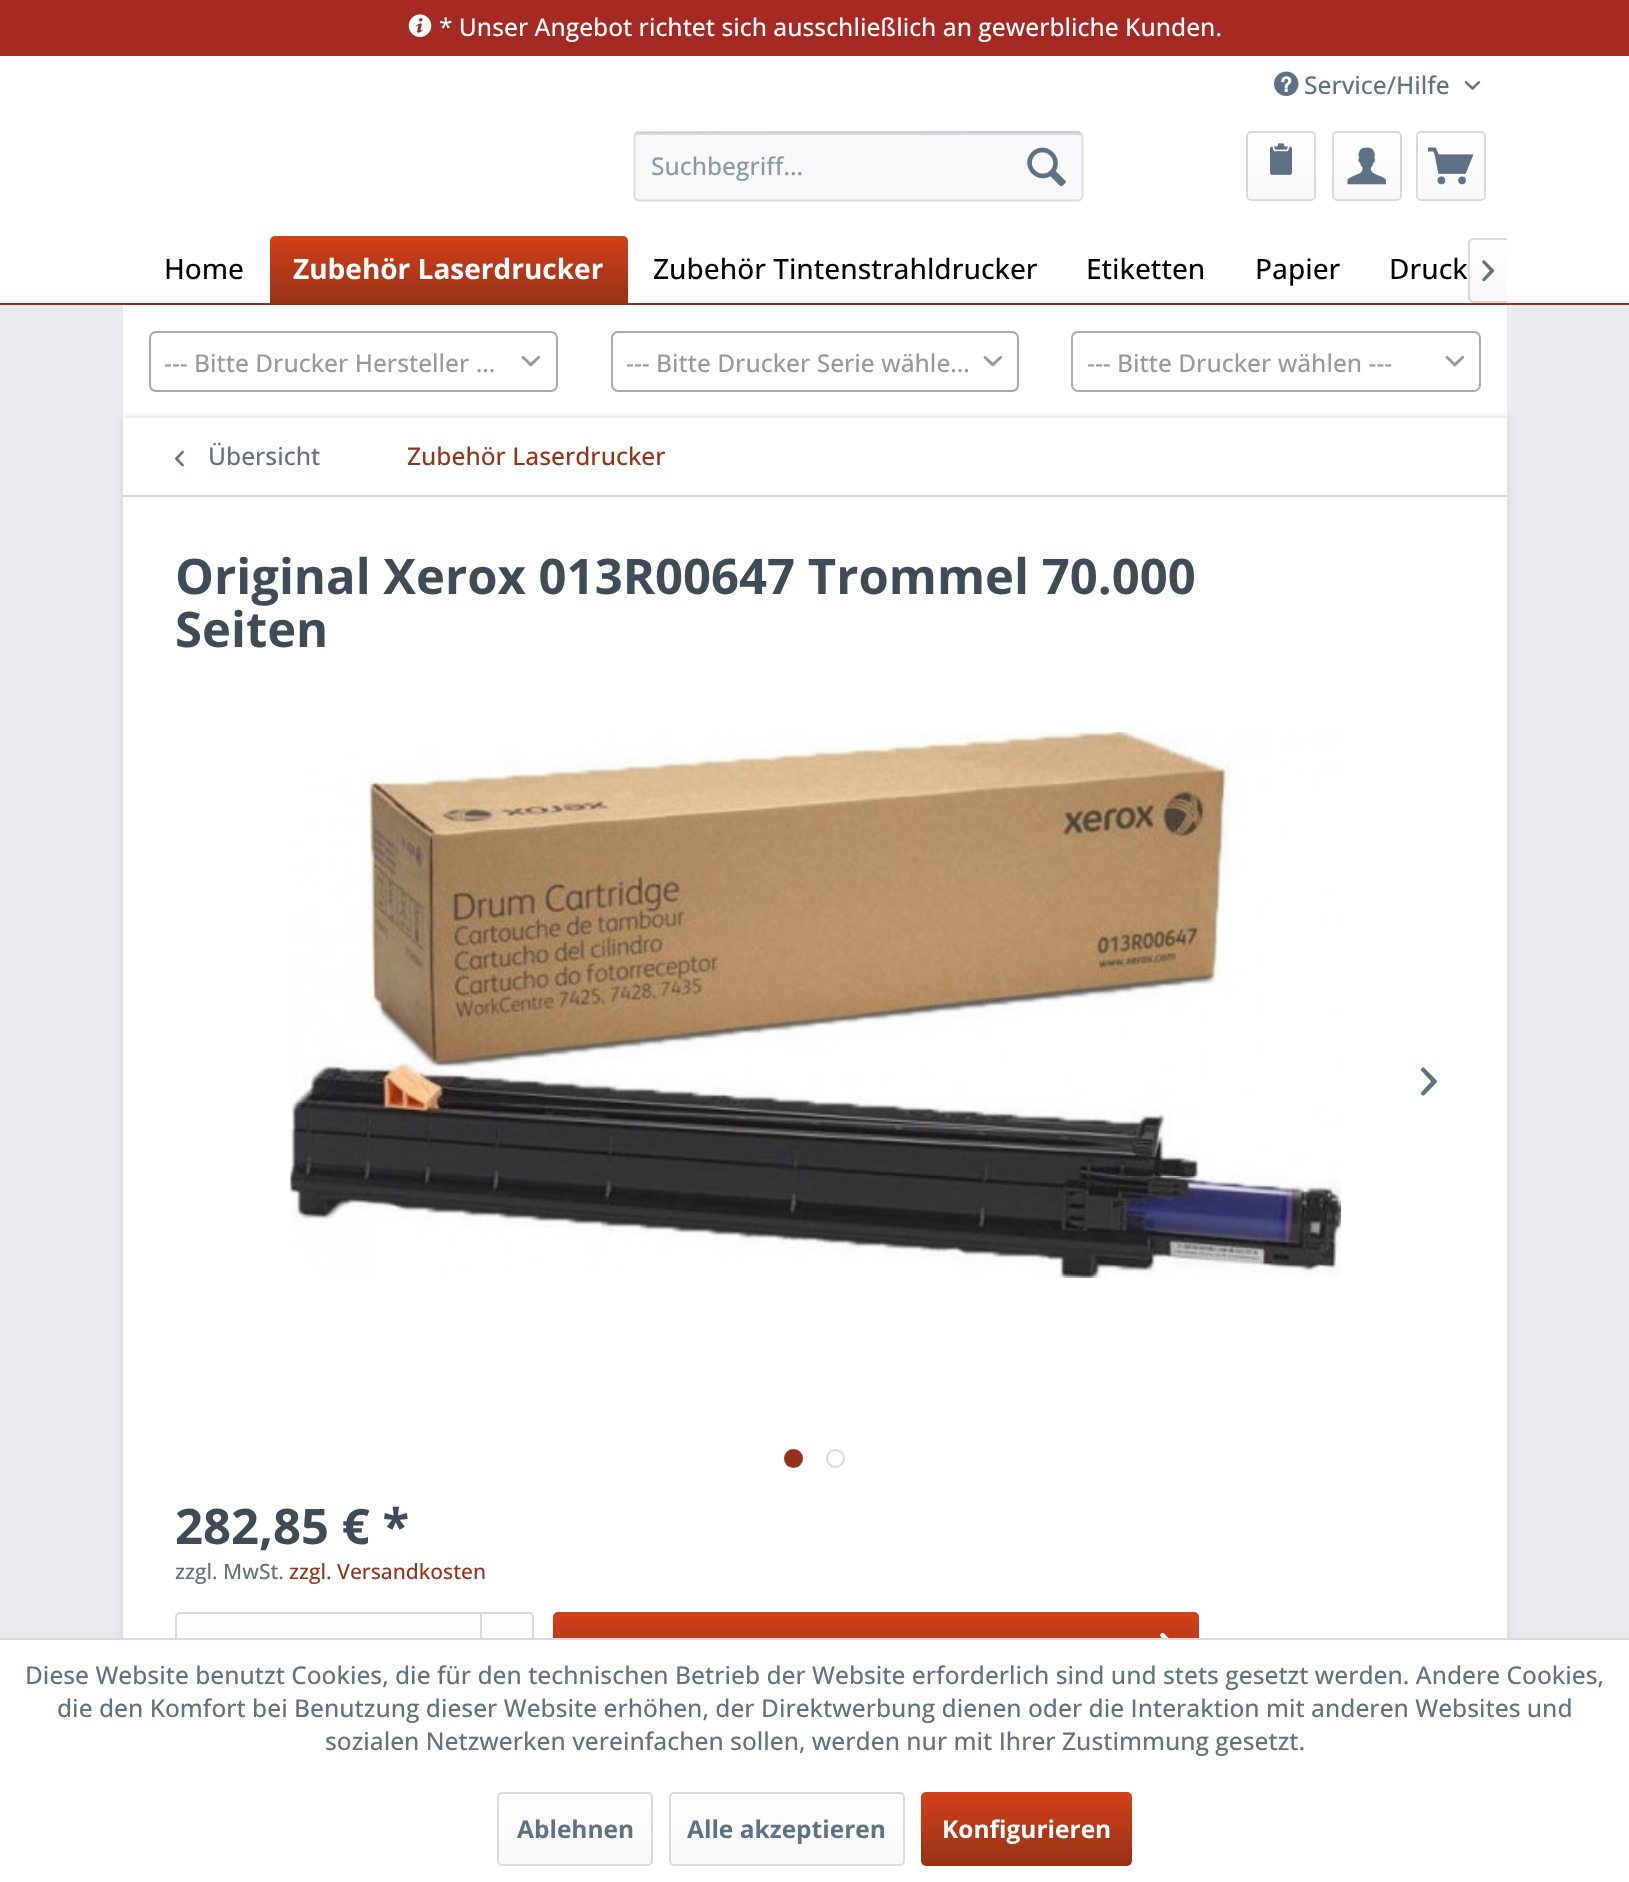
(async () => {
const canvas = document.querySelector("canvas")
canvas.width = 1629
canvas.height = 1882
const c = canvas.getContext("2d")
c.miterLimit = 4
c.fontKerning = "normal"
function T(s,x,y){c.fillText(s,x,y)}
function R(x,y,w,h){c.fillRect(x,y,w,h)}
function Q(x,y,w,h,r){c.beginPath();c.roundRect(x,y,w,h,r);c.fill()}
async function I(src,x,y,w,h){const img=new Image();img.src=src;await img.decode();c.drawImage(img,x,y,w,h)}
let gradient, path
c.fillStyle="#e9e9f0"
R(0,0,1629,1882)
c.fillStyle="#fff"
R(0,56,1629,247)
c.fillStyle="#a42a23"
R(0,0,1629,56)
await I("1.png",408,14,24,23)
c.font="500 24.5px Open Sans"
c.fillStyle="#fff"
T("* Unser Angebot richtet sich ausschließlich an gewerbliche Kunden.",439,36)
await I("2.png",1274,71,25,25)
c.fillStyle="#5f7285"
T("Service/Hilfe",1304,94)
await I("3.png",1464,81,17,9)
c.fillStyle="#f8f8fa"
Q(634,131,449,70,5)
c.fillStyle="#dadae5"
path = new Path2D("M639 135h439c2 0 4 1 4 3c0-3-1-5-4-5h-439l-2 1l-1 1l-1 3c0-2 2-3 4-3z")
c.fill(path)
path = new Path2D("M635.5 133.5l1.5-1l368-.5h73l3 1.5")
c.strokeStyle="#cdcdcd"
c.lineWidth=1.8
c.stroke(path)
path = new Path2D("M1081 133.5c1 .5 1.5 2 1.5 3v59.5c0 1-.5 2.5-1.5 3c-.5 1-2 1.5-3 1.5h-439c-1.5 0-2.5-.5-3.5-1.5c-.5-.5-1-2-1-3v-59.5c0-1 .5-2.5 1-3")
c.strokeStyle="#dadada"
c.stroke(path)
c.fillStyle="#8798a9"
T("Suchbegriff...",651,175)
await I("4.png",1027,147,39,40)
gradient = c.createLinearGradient(1281,133,1281,200)
gradient.addColorStop(0,"#fff")
gradient.addColorStop(1,"#f8f8fa")
c.fillStyle = gradient
Q(1248,133,66,67,4)
c.beginPath()
c.roundRect(1247,132,68,68,4)
c.lineWidth=2
c.stroke()
await I("5.png",1270,143,22,32)
gradient = c.createLinearGradient(1367,133,1367,200)
gradient.addColorStop(0,"#fff")
gradient.addColorStop(1,"#f8f8fa")
c.fillStyle = gradient
Q(1334,133,66,67,4)
c.beginPath()
c.roundRect(1333,132,68,68,4)
c.stroke()
await I("6.png",1347,147,39,38)
gradient = c.createLinearGradient(1451,133,1451,200)
gradient.addColorStop(0,"#fff")
gradient.addColorStop(1,"#f8f8fa")
c.fillStyle = gradient
Q(1418,133,66,67,4)
c.beginPath()
c.roundRect(1417,132,68,68,4)
c.stroke()
await I("7.png",1428,147,46,38)
c.fillStyle="#973218"
R(0,303,1629,2)
c.font="500 28px Open Sans"
c.fillStyle="#000"
T("Home",164,279)
gradient = c.createLinearGradient(449,236,449,303)
gradient.addColorStop(0,"#d2401a")
gradient.addColorStop(1,"#973218")
c.fillStyle = gradient
c.beginPath()
c.roundRect(270,236,358,67,[5,5,0,0])
c.fill()
c.font="bold 28px Open Sans"
c.fillStyle="#fff"
T("Zubehör Laserdrucker",293,279)
c.font="500 28px Open Sans"
c.fillStyle="#000"
T("Zubehör Tintenstrahldrucker",653,279)
T("Etiketten",1086,279)
T("Papier",1255,279)
T("Druck",1389,279)
gradient = c.createLinearGradient(1488,240,1488,301)
gradient.addColorStop(0,"#fff")
gradient.addColorStop(1,"#f8f8fa")
c.fillStyle = gradient
c.beginPath()
c.roundRect(1470,240,37,61,[4,0,0,4])
c.fill()
c.fillStyle="#dadada"
path = new Path2D("M1474 238h33v65h-33c-3 0-6-3-6-5v-55c0-3 3-5 6-5zm0 2h33v61h-33c-2 0-4-2-4-3v-55c0-2 2-3 4-3z")
c.fill(path,"evenodd")
await I("8.png",1482,260,13,22)
c.fillStyle="#fff"
R(123,305,1384,113)
c.beginPath()
c.roundRect(150,332,407,59,6)
c.strokeStyle="#aaa"
c.stroke()
c.font="500 24.5px Open Sans"
c.fillStyle="#999"
T("--- Bitte Drucker Hersteller …",164,372)
await I("9.png",521,355,19,12)
c.beginPath()
c.roundRect(612,332,406,59,6)
c.stroke()
c.save()
c.beginPath()
c.rect(627,333,344,61)
c.clip()
T("--- Bitte Drucker Serie wähle…",626,372)
c.restore()
await I("9.png",983,355,19,12)
c.beginPath()
c.roundRect(1072,332,408,59,6)
c.stroke()
T("--- Bitte Drucker wählen ---",1087,372)
await I("9.png",1445,355,19,12)
c.fillStyle="#dadada"
c.filter="blur(3.5px)"
c.beginPath()
c.rect(121,417,1388,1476)
c.fill()
c.filter="none"
c.fillStyle="#fff"
R(123,418,1384,1220)
c.fillStyle="#dadada"
R(123,495,1384,2)
await I("10.png",175,450,9,17)
c.fillStyle="#5f7285"
T("Übersicht",208,465)
c.fillStyle="#973218"
T("Zubehör Laserdrucker",407,465)
c.font="bold 49px Open Sans"
c.fillStyle="#3f4c58"
T("Original Xerox 013R00647 Trommel 70.000",175,594)
T("Seiten",175,647)
await I("11.png",290,732,1051,546)
await I("12.png",1421,1067,16,29)
c.fillStyle="#973218"
c.beginPath()
c.arc(793.5,1458.5,8.5,0,7)
c.fill()
c.strokeStyle="#973218"
c.stroke()
c.beginPath()
c.arc(835.5,1458.5,8.5,0,7)
c.strokeStyle="#dadada"
c.stroke()
c.fillStyle="#3f4c58"
T("282,85 € *",175,1544)
c.font="500 21px Open Sans"
c.fillStyle="#5f7285"
T("zzgl. MwSt.",175,1579)
c.fillStyle="#973218"
T("zzgl. Versandkosten",289,1579)
gradient = c.createLinearGradient(354,1614,354,1684)
gradient.addColorStop(0,"#fff")
gradient.addColorStop(1,"#f8f8fa")
c.fillStyle = gradient
Q(177,1614,355,70,4)
c.beginPath()
c.roundRect(176,1613,357,71,4)
c.stroke()
c.fillStyle="#dadada"
R(480,1614,2,24)
gradient = c.createLinearGradient(876,1612,876,1685)
gradient.addColorStop(0,"#d2401a")
gradient.addColorStop(1,"#973218")
c.fillStyle = gradient
Q(553,1612,646,73,5)
await I("13.png",1160,1633,9,5)
c.fillStyle="#fff"
R(0,1640,1629,242)
c.fillStyle="#dadae5"
R(0,1638,1629,2)
c.font="500 24.5px Open Sans"
c.fillStyle="#5f7285"
T("Diese Website benutzt Cookies, die für den technischen Betrieb der Website erforderlich sind und stets gesetzt werden. Andere Cookies,",25,1684)
T("die den Komfort bei Benutzung dieser Website erhöhen, der Direktwerbung dienen oder die Interaktion mit anderen Websites und",57,1717)
T("sozialen Netzwerken vereinfachen sollen, werden nur mit Ihrer Zustimmung gesetzt.",325,1750)
gradient = c.createLinearGradient(575,1794,575,1864)
gradient.addColorStop(0,"#fff")
gradient.addColorStop(1,"#f8f8fa")
c.fillStyle = gradient
Q(499,1794,152,70,4)
c.beginPath()
c.roundRect(498,1793,154,72,4)
c.stroke()
c.font="bold 24.5px Open Sans"
c.fillStyle="#5f7285"
T("Ablehnen",517,1838)
gradient = c.createLinearGradient(787,1794,787,1864)
gradient.addColorStop(0,"#fff")
gradient.addColorStop(1,"#f8f8fa")
c.fillStyle = gradient
Q(670,1794,233,70,4)
c.beginPath()
c.roundRect(670,1793,234,72,4)
c.stroke()
c.fillStyle="#5f7285"
T("Alle akzeptieren",687,1838)
gradient = c.createLinearGradient(1026,1792,1026,1866)
gradient.addColorStop(0,"#d2401a")
gradient.addColorStop(1,"#973218")
c.fillStyle = gradient
Q(921,1792,211,74,5)
c.fillStyle="#fff"
T("Konfigurieren",942,1838)
})()
